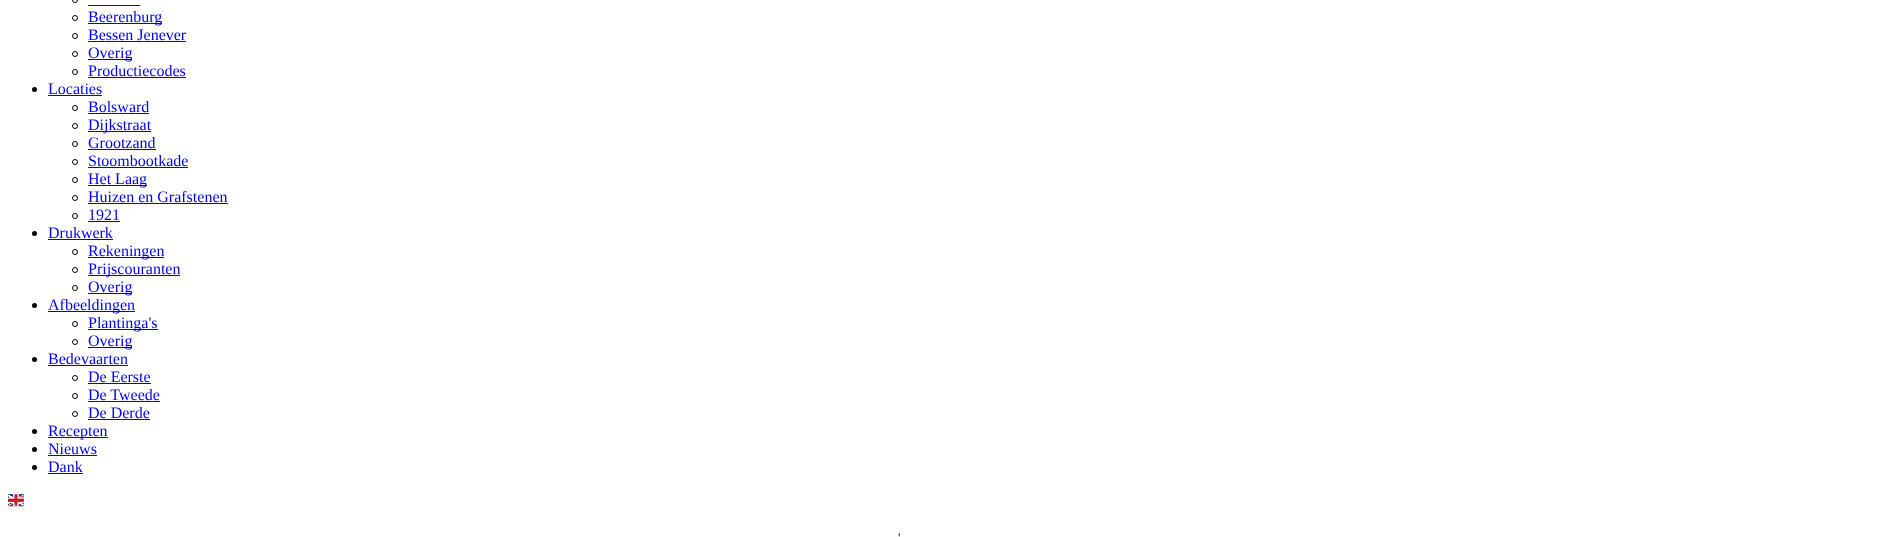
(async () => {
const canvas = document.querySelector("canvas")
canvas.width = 1899
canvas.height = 537
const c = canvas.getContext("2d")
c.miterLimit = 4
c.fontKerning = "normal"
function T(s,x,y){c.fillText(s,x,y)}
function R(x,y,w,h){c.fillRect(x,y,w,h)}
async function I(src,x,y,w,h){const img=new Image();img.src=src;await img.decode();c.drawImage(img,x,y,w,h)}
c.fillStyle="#fff"
R(0,0,1899,537)
c.beginPath()
c.arc(75,0,2.5,0,7)
c.strokeStyle="#000"
c.stroke()
c.fillStyle="#00e"
R(88,5,52,1)
c.beginPath()
c.arc(75,18,2.5,0,7)
c.stroke()
R(88,23,74,1)
c.font="16px Liberation Serif"
T("Beerenburg",88,22)
c.beginPath()
c.arc(75,36,2.5,0,7)
c.stroke()
T("Bessen Jenever",88,40)
R(88,41,98,1)
c.beginPath()
c.arc(75,54,2.5,0,7)
c.stroke()
R(88,59,44,1)
T("Overig",88,58)
c.beginPath()
c.arc(75,72,2.5,0,7)
c.stroke()
T("Productiecodes",88,76)
R(88,77,98,1)
c.fillStyle="#000"
c.beginPath()
c.arc(34.5,89.5,2.5,0,7)
c.fill()
c.fillStyle="#00e"
T("Locaties",48,94)
R(48,95,54,1)
c.beginPath()
c.arc(75,108,2.5,0,7)
c.stroke()
T("Bolsward",88,112)
R(88,113,61,1)
c.beginPath()
c.arc(75,126,2.5,0,7)
c.stroke()
R(88,131,63,1)
T("Dijkstraat",88,130)
c.beginPath()
c.arc(75,144,2.5,0,7)
c.stroke()
T("Grootzand",88,148)
R(88,149,68,1)
c.beginPath()
c.arc(75,162,2.5,0,7)
c.stroke()
T("Stoombootkade",88,166)
R(88,167,100,1)
c.beginPath()
c.arc(75,180,2.5,0,7)
c.stroke()
R(88,185,59,1)
T("Het Laag",88,184)
c.beginPath()
c.arc(75,198,2.5,0,7)
c.stroke()
T("Huizen en Grafstenen",88,202)
R(88,203,140,1)
c.beginPath()
c.arc(75,216,2.5,0,7)
c.stroke()
T("1921",88,220)
R(88,221,32,1)
c.fillStyle="#000"
c.beginPath()
c.arc(34.5,233.5,2.5,0,7)
c.fill()
c.fillStyle="#00e"
T("Drukwerk",48,238)
R(48,239,65,1)
c.beginPath()
c.arc(75,252,2.5,0,7)
c.stroke()
R(88,257,76,1)
T("Rekeningen",88,256)
c.beginPath()
c.arc(75,270,2.5,0,7)
c.stroke()
R(88,275,92,1)
T("Prijscouranten",88,274)
c.beginPath()
c.arc(75,288,2.5,0,7)
c.stroke()
R(88,293,44,1)
T("Overig",88,292)
c.fillStyle="#000"
c.beginPath()
c.arc(34.5,305.5,2.5,0,7)
c.fill()
c.fillStyle="#00e"
R(48,311,87,1)
T("Afbeeldingen",48,310)
c.beginPath()
c.arc(75,324,2.5,0,7)
c.stroke()
R(88,329,70,1)
T("Plantinga's",88,328)
c.beginPath()
c.arc(75,342,2.5,0,7)
c.stroke()
R(88,347,44,1)
T("Overig",88,346)
c.fillStyle="#000"
c.beginPath()
c.arc(34.5,359.5,2.5,0,7)
c.fill()
c.fillStyle="#00e"
T("Bedevaarten",48,364)
R(48,365,80,1)
c.beginPath()
c.arc(75,378,2.5,0,7)
c.stroke()
T("De Eerste",88,382)
R(88,383,63,1)
c.beginPath()
c.arc(75,396,2.5,0,7)
c.stroke()
T("De Tweede",88,400)
R(88,401,72,1)
c.beginPath()
c.arc(75,414,2.5,0,7)
c.stroke()
T("De Derde",88,418)
R(88,419,62,1)
c.fillStyle="#000"
c.beginPath()
c.arc(34.5,431.5,2.5,0,7)
c.fill()
c.fillStyle="#00e"
R(48,437,60,1)
T("Recepten",48,436)
c.fillStyle="#000"
c.beginPath()
c.arc(34.5,449.5,2.5,0,7)
c.fill()
c.fillStyle="#00e"
T("Nieuws",48,454)
R(48,455,49,1)
c.fillStyle="#000"
c.beginPath()
c.arc(34.5,467.5,2.5,0,7)
c.fill()
c.fillStyle="#00e"
T("Dank",48,472)
R(48,473,35,1)
await I("1.png",8,494,16,13)
c.font="13px Liberation Serif"
c.fillStyle="#000"
T("'",898,542)
})()
